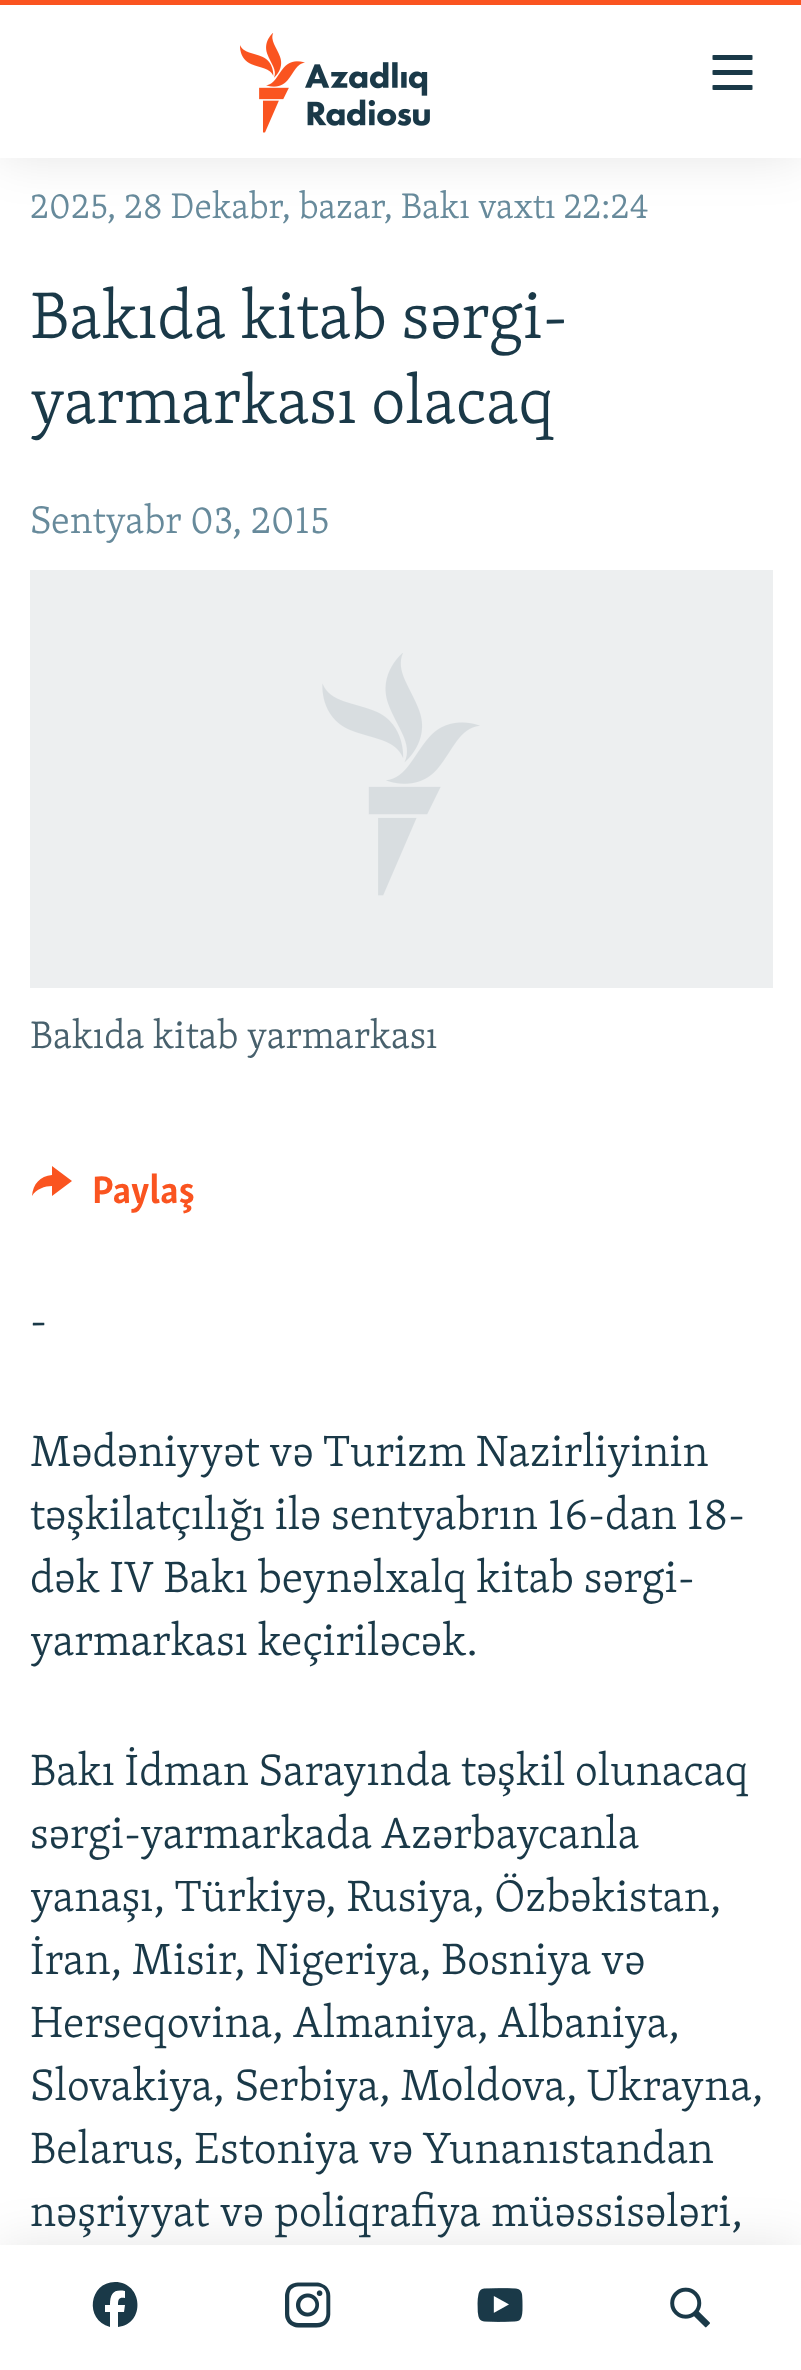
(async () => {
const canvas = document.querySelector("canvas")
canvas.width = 801
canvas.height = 2370
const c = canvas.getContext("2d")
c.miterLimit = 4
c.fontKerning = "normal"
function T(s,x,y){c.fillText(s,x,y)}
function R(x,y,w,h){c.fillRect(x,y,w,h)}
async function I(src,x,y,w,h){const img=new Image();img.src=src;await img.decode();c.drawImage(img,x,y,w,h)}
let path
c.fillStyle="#fff"
R(0,0,801,2370)
c.fillStyle="#0000001a"
c.filter="blur(25px)"
c.beginPath()
c.rect(0,0,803,158)
c.fill()
c.filter="none"
c.fillStyle="#fff"
R(0,5,801,153)
c.fillStyle="#fa5420"
R(0,0,801,5)
await I("1.png",240,33,190,100)
await I("2.png",712,55,41,35)
c.fillStyle="#0000001a"
c.filter="blur(25px)"
c.beginPath()
c.rect(0,2245,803,125)
c.fill()
c.filter="none"
c.fillStyle="#fff"
R(0,2245,801,125)
c.fillStyle="#1a3948"
path = new Path2D("M115 2282c-26 0-31 38-5 45v-15h-5v-7h5c0-12 4-16 15-14v7c-6-1-7 1-7 7h7l-1 7h-6v15c28-3 25-45-3-45z")
c.fill(path)
await I("3.png",285,2282,46,46)
await I("4.png",477,2288,46,34)
await I("5.png",670,2287,40,41)
c.font="300 36.6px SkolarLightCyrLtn"
c.fillStyle="#678a9b"
T("2025, 28 Dekabr, bazar, Bakı vaxtı 22:24",30,218)
c.font="300 67.5px SkolarLightCyrLtn"
c.fillStyle="#1a3948"
T("Bakıda kitab sərgi-",30,338)
T("yarmarkası olacaq",30,423)
c.font="300 39.4px SkolarLightCyrLtn"
c.fillStyle="#678a9b"
T("Sentyabr 03, 2015",30,533)
c.fillStyle="#edeff0"
R(30,570,743,418)
await I("6.png",322,653,158,243)
c.fillStyle="#48616d"
T("Bakıda kitab yarmarkası",30,1048)
c.fillStyle="#fa5420"
path = new Path2D("M32 1196c1-12 8-20 20-21v-9l20 15l-20 15v-10c-7 0-16 3-20 10z")
c.fill(path)
c.font="bold 39.4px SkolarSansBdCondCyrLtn"
T("Paylaş",92,1203)
c.font="300 45px SkolarLightCyrLtn"
c.fillStyle="#1a3948"
T("-",30,1335)
T("Mədəniyyət və Turizm Nazirliyinin",30,1466)
T("təşkilatçılığı ilə sentyabrın 16-dan 18-",30,1529)
T("dək IV Bakı beynəlxalq kitab sərgi-",30,1592)
T("yarmarkası keçiriləcək.",30,1655)
T("Bakı İdman Sarayında təşkil olunacaq",30,1785)
T("sərgi-yarmarkada Azərbaycanla",30,1848)
T("yanaşı, Türkiyə, Rusiya, Özbəkistan,",30,1911)
T("İran, Misir, Nigeriya, Bosniya və",30,1974)
T("Herseqovina, Almaniya, Albaniya,",30,2037)
T("Slovakiya, Serbiya, Moldova, Ukrayna,",30,2100)
T("Belarus, Estoniya və Yunanıstandan",30,2163)
c.wordSpacing="0.5px"
T("nəşriyyat və poliqrafiya müəssisələri,",30,2226)
})()
